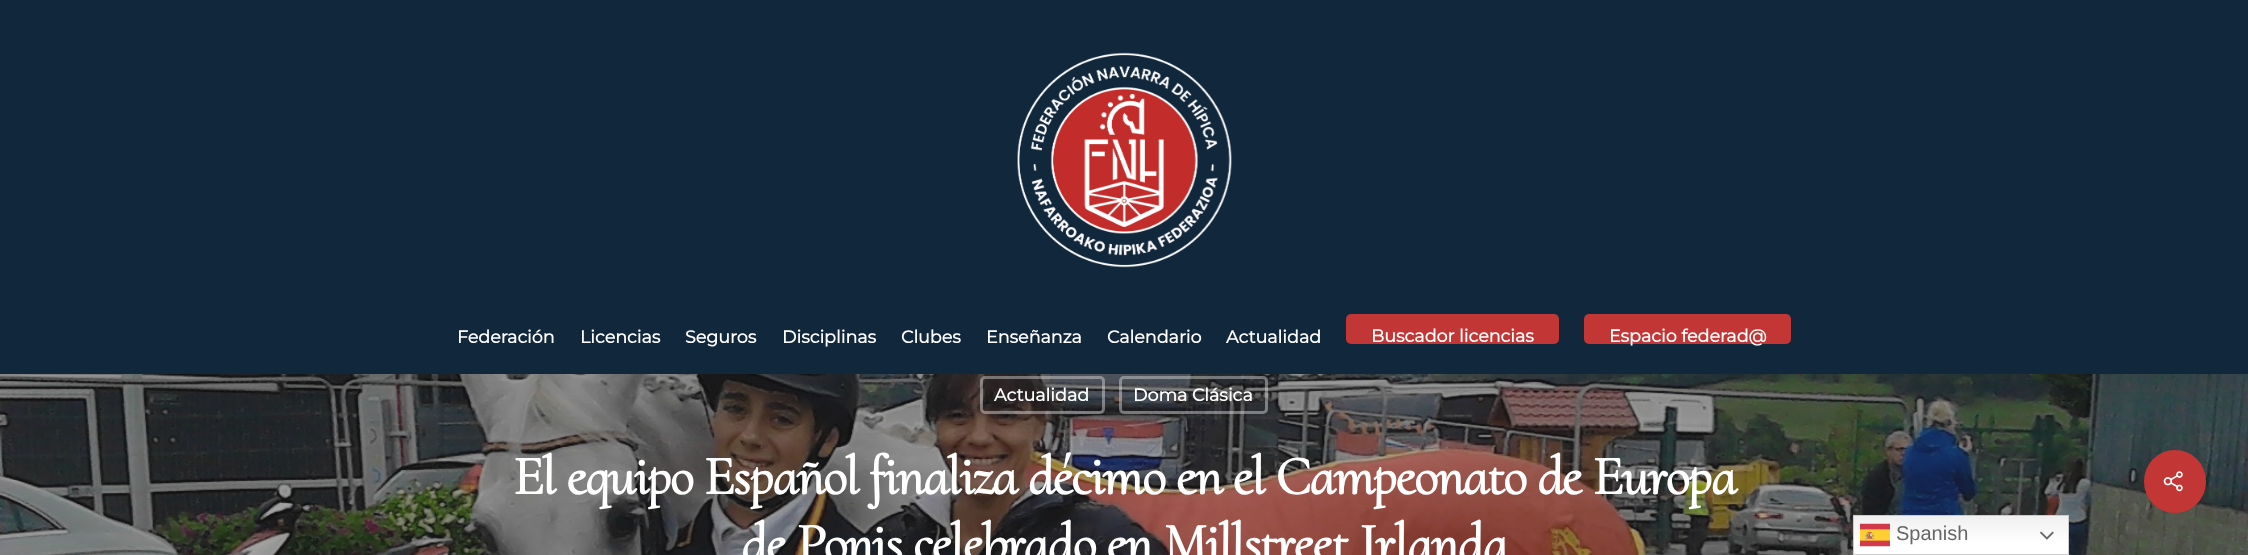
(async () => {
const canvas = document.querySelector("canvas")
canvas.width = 2248
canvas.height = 555
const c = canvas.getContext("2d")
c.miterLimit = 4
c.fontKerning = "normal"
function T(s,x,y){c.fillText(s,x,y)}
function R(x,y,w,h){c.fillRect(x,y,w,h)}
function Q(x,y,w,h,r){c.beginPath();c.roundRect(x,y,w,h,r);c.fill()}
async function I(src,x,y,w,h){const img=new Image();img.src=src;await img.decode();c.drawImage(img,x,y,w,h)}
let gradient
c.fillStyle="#fff"
R(0,0,2248,555)
await I("2.png",0,374,2248,181)
c.beginPath()
c.roundRect(981.5,377.5,122,35,3.5)
c.strokeStyle="#ffffff66"
c.lineWidth=3
c.stroke()
c.beginPath()
c.roundRect(1120.5,377.5,146,35,3.5)
c.stroke()
c.fillStyle="#c23635"
Q(2144,450,62,63,31)
c.fillStyle="#00000026"
c.filter="blur(28px)"
c.beginPath()
c.rect(0,4,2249,374)
c.fill()
c.filter="none"
c.fillStyle="#11273c"
R(0,0,2248,374)
await I("1.png",1017,52,215,216)
c.font="bold 17.5px Montserrat"
c.fillStyle="#fff"
T("Federación",457,343)
T("Licencias",580,343)
T("Seguros",685,343)
T("Disciplinas",782,343)
T("Clubes",901,343)
T("Enseñanza",986,343)
T("Calendario",1107,343)
T("Actualidad",1226,343)
c.fillStyle="#c23635"
Q(1346,314,213,30,5)
c.fillStyle="#fff"
T("Buscador licencias",1371,342)
c.fillStyle="#c23635"
Q(1584,314,207,30,5)
c.fillStyle="#fff"
T("Espacio federad@",1609,342)
T("Actualidad",994,401)
T("Doma Clásica",1133,401)
c.letterSpacing="-1.25px"
c.font="bold 55px Cormorant Upright"
T("El equipo Español finaliza décimo en el Campeonato de Europa",513,494)
T("de Ponis celebrado en Millstreet Irlanda",741,561)
await I("3.png",2163,471,20,21)
gradient = c.createLinearGradient(1961,515,1961,555)
gradient.addColorStop(0,"#efefef")
gradient.addColorStop(.7,"#fff")
c.fillStyle = gradient
R(1854,516,214,38)
c.strokeStyle="#ccc"
c.lineWidth=1
c.strokeRect(1853.5,515.5,215,39)
await I("4.png",1860,523,30,24)
c.letterSpacing="0px"
c.font="20px Liberation Sans"
c.fillStyle="#666"
T("Spanish",1896,540)
await I("5.png",2040,531,14,9)
})()
